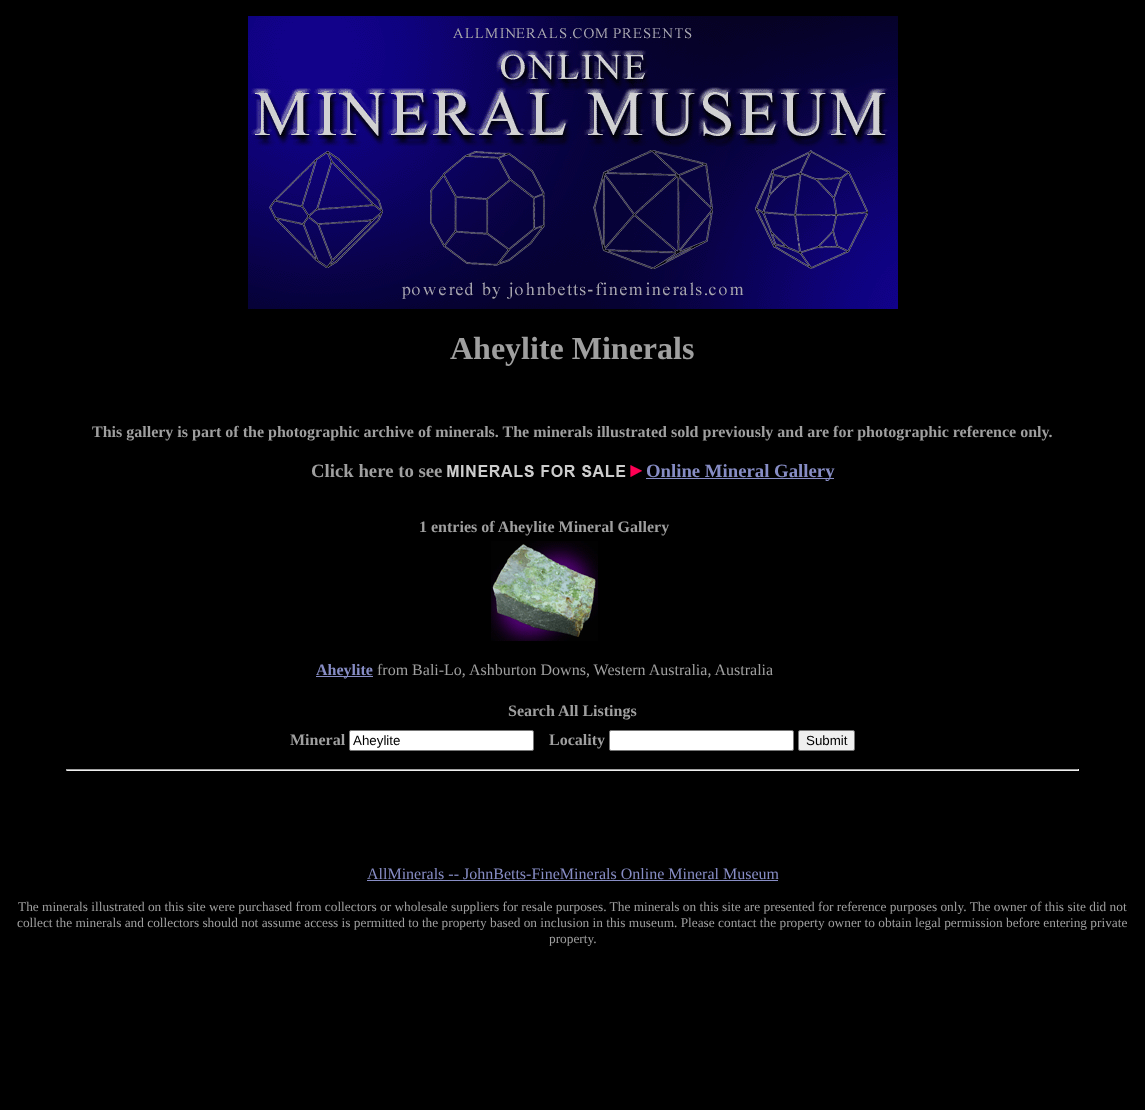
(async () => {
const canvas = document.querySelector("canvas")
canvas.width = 1145
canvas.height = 1110
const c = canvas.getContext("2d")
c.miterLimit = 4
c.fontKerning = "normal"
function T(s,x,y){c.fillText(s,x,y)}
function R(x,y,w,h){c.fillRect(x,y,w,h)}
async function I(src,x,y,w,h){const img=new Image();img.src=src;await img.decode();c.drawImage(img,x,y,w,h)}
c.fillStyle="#000"
R(0,0,1145,1110)
await I("1.png",248,16,650,293)
c.font="bold 32px Liberation Serif"
c.fillStyle="#9f9f9f"
T("Aheylite Minerals",450,359)
c.font="bold 16px Liberation Serif"
T("This gallery is part of the photographic archive of minerals. The minerals illustrated sold previously and are for photographic reference only.",92,437)
c.font="bold 18.75px Liberation Serif"
T("Click here to see",311,477)
await I("2.png",447,465,195,12)
c.fillStyle="#878dc5"
R(646,478,188,1)
T("Online Mineral Gallery",646,477)
c.font="bold 16px Liberation Serif"
c.fillStyle="#9f9f9f"
T("1 entries of Aheylite Mineral Gallery",419,532)
await I("3.png",491,541,107,100)
c.fillStyle="#878dc5"
R(316,676,57,1)
T("Aheylite",316,675)
c.font="16px Liberation Serif"
c.fillStyle="#9f9f9f"
T("from Bali-Lo, Ashburton Downs, Western Australia, Australia",377,675)
c.font="bold 16px Liberation Serif"
T("Search All Listings",508,716)
T("Mineral",290,745)
c.fillStyle="#fff"
c.beginPath()
c.roundRect(349.5,730.5,184,20,1.5)
c.fill()
c.strokeStyle="#767676"
c.stroke()
c.font="13.33px Liberation Sans"
c.fillStyle="#000"
T("Aheylite",353,745)
c.font="bold 16px Liberation Serif"
c.fillStyle="#9f9f9f"
T("Locality",549,745)
c.fillStyle="#fff"
c.beginPath()
c.roundRect(609.5,730.5,184,20,1.5)
c.fill()
c.stroke()
c.fillStyle="#efefef"
c.beginPath()
c.roundRect(798.5,730.5,56,20,1.5)
c.fill()
c.stroke()
c.font="13.33px Liberation Sans"
c.fillStyle="#000"
T("Submit",806,745)
c.fillStyle="#9f9f9f"
R(66,769,1013,1)
c.fillStyle="#eee"
R(1078,769,1,2)
R(66,770,1013,1)
c.fillStyle="#9f9f9f"
R(66,769,1,2)
c.font="16px Liberation Serif"
c.fillStyle="#878dc5"
T("AllMinerals -- JohnBetts-FineMinerals Online Mineral Museum",367,879)
R(367,880,411,1)
c.font="13.33px Liberation Serif"
c.fillStyle="#9f9f9f"
T("The minerals illustrated on this site were purchased from collectors or wholesale suppliers for resale purposes. The minerals on this site are presented for reference purposes only. The owner of this site did not",18,911)
T("collect the minerals and collectors should not assume access is permitted to the property based on inclusion in this museum. Please contact the property owner to obtain legal permission before entering private",17,927)
T("property.",549,943)
})()
